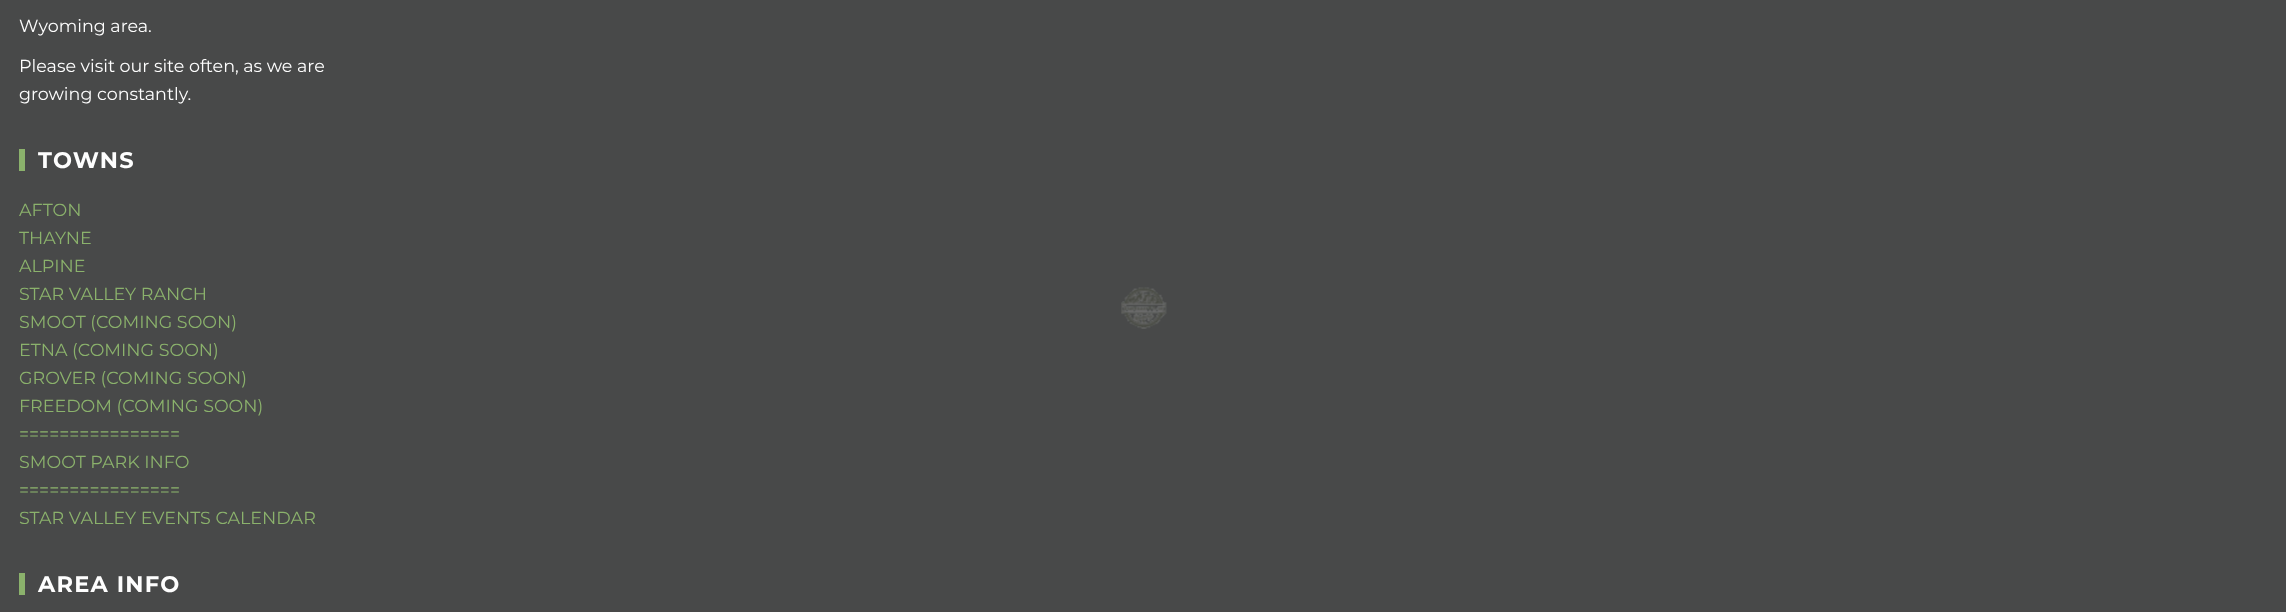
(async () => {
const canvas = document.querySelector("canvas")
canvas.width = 2286
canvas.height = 612
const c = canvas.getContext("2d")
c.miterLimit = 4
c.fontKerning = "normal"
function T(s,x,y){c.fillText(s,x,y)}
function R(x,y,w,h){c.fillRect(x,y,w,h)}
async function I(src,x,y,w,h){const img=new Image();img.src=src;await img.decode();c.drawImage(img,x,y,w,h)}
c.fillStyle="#484949"
R(0,0,2286,612)
c.font="17.5px Montserrat"
c.fillStyle="#fefefe"
T("Wyoming area.",19,32)
T("Please visit our site often, as we are",19,72)
T("growing constantly.",19,100)
c.fillStyle="#8bb26c"
R(19,149,6,22)
c.letterSpacing="1.25px"
c.font="bold 22.5px Montserrat"
c.fillStyle="#fefefe"
T("TOWNS",38,168)
c.letterSpacing="0px"
c.font="17.5px Montserrat"
c.fillStyle="#8bb26c"
T("AFTON",19,216)
T("THAYNE",19,244)
T("ALPINE",19,272)
T("STAR VALLEY RANCH",19,300)
T("SMOOT (COMING SOON)",19,328)
T("ETNA (COMING SOON)",19,356)
T("GROVER (COMING SOON)",19,384)
T("FREEDOM (COMING SOON)",19,412)
T("================",19,440)
T("SMOOT PARK INFO",19,468)
T("================",19,496)
T("STAR VALLEY EVENTS CALENDAR",19,524)
R(19,573,6,22)
c.letterSpacing="1.25px"
c.font="bold 22.5px Montserrat"
c.fillStyle="#fefefe"
T("AREA INFO",38,592)
await I("1.png",1121,287,46,42)
})()
